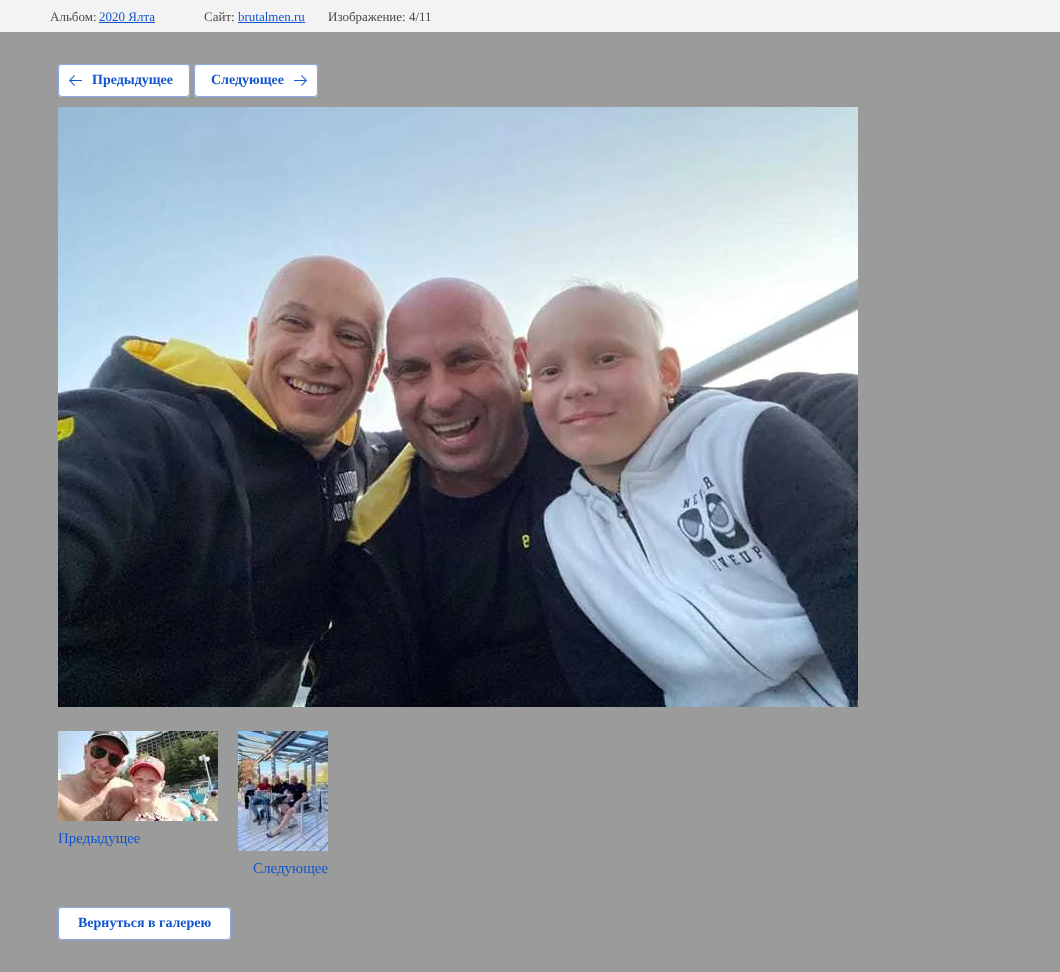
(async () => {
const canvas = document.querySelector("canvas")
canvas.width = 1060
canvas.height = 972
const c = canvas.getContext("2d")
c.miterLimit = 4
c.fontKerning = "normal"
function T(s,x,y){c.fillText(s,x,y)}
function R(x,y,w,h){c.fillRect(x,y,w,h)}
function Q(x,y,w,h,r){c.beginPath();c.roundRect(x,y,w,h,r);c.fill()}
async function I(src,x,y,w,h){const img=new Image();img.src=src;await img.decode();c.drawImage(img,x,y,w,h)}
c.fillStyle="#9b9b9b"
R(0,0,1060,972)
c.fillStyle="#f3f3f3"
R(0,0,1060,32)
c.font="13px Liberation Serif"
c.fillStyle="#484848"
T("Альбом:",50,21)
c.fillStyle="#15c"
T("2020 Ялта",99,21)
R(99,22,56,1)
c.fillStyle="#484848"
T("Сайт:",204,21)
c.fillStyle="#15c"
T("brutalmen.ru",238,21)
R(238,22,67,1)
c.fillStyle="#484848"
T("Изображение: 4/11",328,21)
c.fillStyle="#fff"
Q(58,64,132,33,4)
c.beginPath()
c.roundRect(58.5,64.5,131,32,3.5)
c.strokeStyle="#1155cc80"
c.stroke()
await I("1.png",69,75,13,11)
c.font="bold 14px Liberation Serif"
c.fillStyle="#15c"
T("Предыдущее",92,84)
c.fillStyle="#fff"
Q(194,64,124,33,4)
c.beginPath()
c.roundRect(194.5,64.5,123,32,3.5)
c.stroke()
c.fillStyle="#15c"
T("Следующее",211,84)
await I("2.png",294,75,13,11)
await I("3.png",58,107,800,600)
await I("4.png",58,731,160,90)
c.font="15px Liberation Serif"
T("Предыдущее",58,843)
await I("5.png",238,731,90,120)
T("Следующее",253,873)
c.fillStyle="#fff"
Q(58,907,173,33,4)
c.beginPath()
c.roundRect(58.5,907.5,172,32,3.5)
c.stroke()
c.font="bold 14px Liberation Serif"
c.fillStyle="#15c"
T("Вернуться в галерею",78,927)
})()
